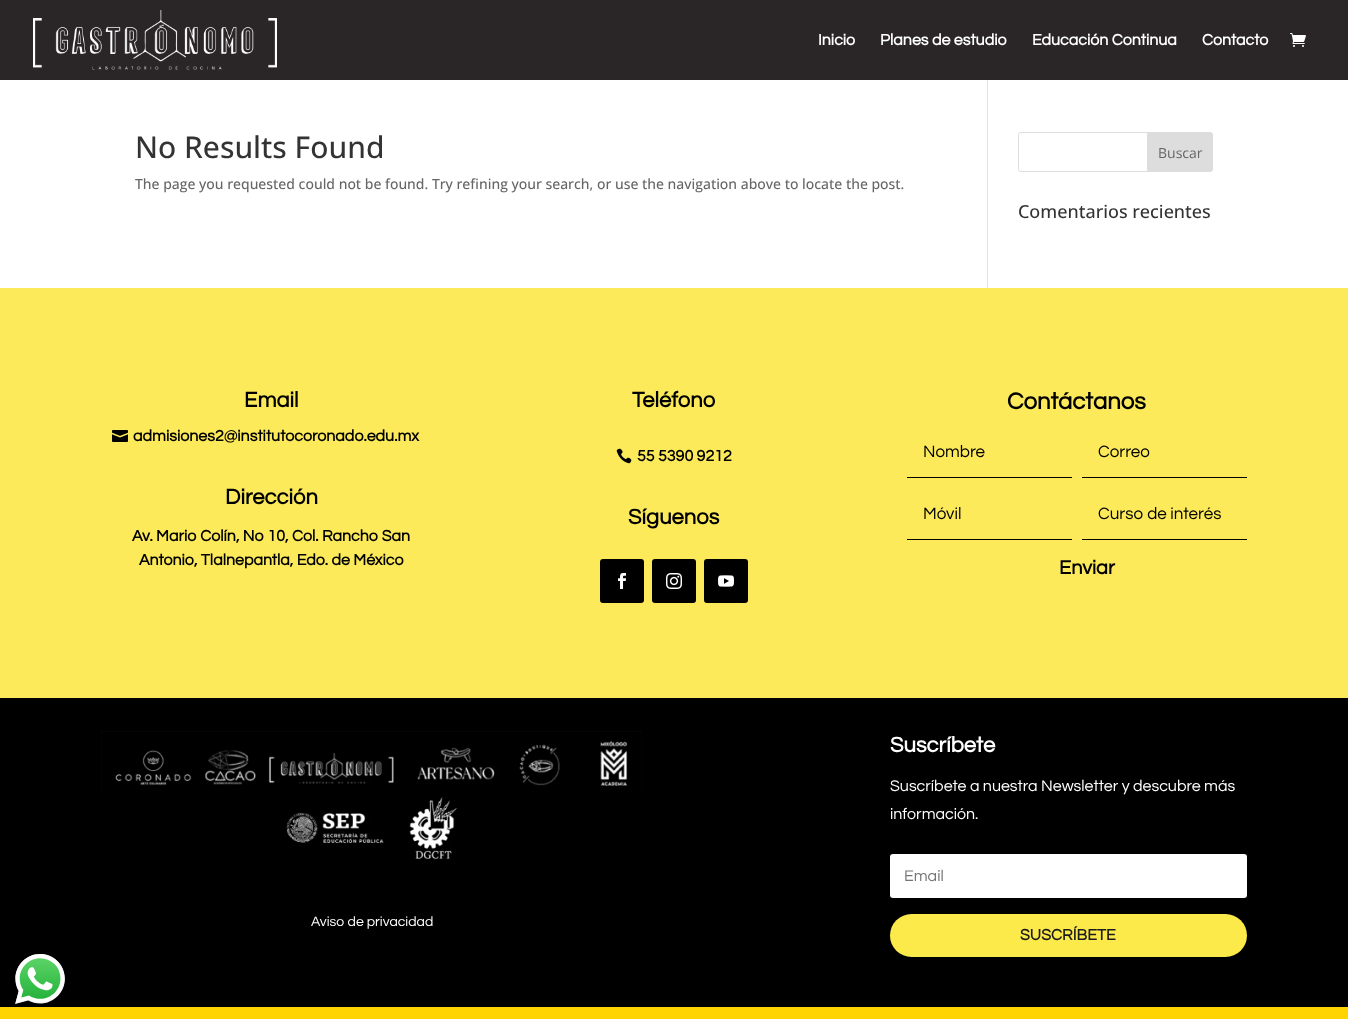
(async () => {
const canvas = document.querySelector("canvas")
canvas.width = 1348
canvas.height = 1019
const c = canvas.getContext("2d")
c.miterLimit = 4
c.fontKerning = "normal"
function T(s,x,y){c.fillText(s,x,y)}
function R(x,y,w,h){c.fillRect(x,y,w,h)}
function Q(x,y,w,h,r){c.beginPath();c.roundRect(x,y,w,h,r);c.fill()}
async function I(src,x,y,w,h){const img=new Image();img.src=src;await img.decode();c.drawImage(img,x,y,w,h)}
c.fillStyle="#ffd400"
R(0,0,1348,1019)
c.fillStyle="#2a2627"
R(0,0,1348,80)
await I("1.png",33,10,244,60)
c.font="bold 16px Questrial"
c.fillStyle="#fff"
T("Inicio",818,45)
T("Planes de estudio",880,45)
T("Educación Continua",1032,45)
T("Contacto",1202,45)
await I("2.png",1290,33,16,14)
R(0,80,1348,208)
c.fillStyle="#e2e2e2"
R(987,80,1,208)
c.font="500 30px Open Sans"
c.fillStyle="#333"
T("No Results Found",135,158)
c.font="500 14px Open Sans"
c.fillStyle="#666"
T("The page you requested could not be found. Try refining your search, or use the navigation above to locate the post.",135,189)
c.beginPath()
c.roundRect(1018.5,132.5,194,39,2.5)
c.strokeStyle="#ddd"
c.stroke()
c.fillStyle="#ddd"
c.beginPath()
c.roundRect(1147.5,132.5,65,39,[0,2.5,2.5,0])
c.fill()
c.stroke()
c.font="14px Open Sans"
c.fillStyle="#666"
T("Buscar",1158,158)
c.font="500 18px Open Sans"
c.fillStyle="#333"
T("Comentarios recientes",1018,218)
c.fillStyle="#fcea5a"
R(0,288,1348,410)
c.font="bold 22px Questrial"
c.fillStyle="#000"
T("Email",244,407)
await I("3.png",112,430,16,12)
c.font="bold 16px Questrial"
T("admisiones2@institutocoronado.edu.mx",133,441)
c.font="bold 22px Questrial"
T("Dirección",225,504)
c.font="bold 16px Questrial"
T("Av. Mario Colín, No 10, Col. Rancho San",132,541)
T("Antonio, Tlalnepantla, Edo. de México",139,565)
c.font="bold 22px Questrial"
T("Teléfono",632,407)
await I("4.png",616,448,16,16)
c.font="bold 16px Questrial"
T("55 5390 9212",637,461)
c.font="bold 22px Questrial"
T("Síguenos",628,524)
Q(600,559,44,44,3)
await I("5.png",618,573,8,16)
Q(652,559,44,44,3)
await I("6.png",666,573,16,16)
Q(704,559,44,44,3)
await I("7.png",718,575,16,12)
c.font="bold 24px Questrial"
T("Contáctanos",1007,409)
R(907,477,165,1)
c.font="17px Questrial"
T("Nombre",923,457)
R(1082,477,165,1)
T("Correo",1098,457)
R(907,539,165,1)
T("Móvil",923,519)
R(1082,539,165,1)
T("Curso de interés",1098,519)
c.font="bold 20px Questrial"
T("Enviar",1059,574)
R(0,698,1348,309)
await I("8.png",101,731,541,128)
c.font="14px Questrial"
c.fillStyle="#fff"
T("Aviso de privacidad",311,926)
c.font="bold 22px Questrial"
T("Suscríbete",890,752)
c.font="16px Questrial"
T("Suscríbete a nuestra Newsletter y descubre más",890,791)
T("información.",890,819)
Q(890,854,357,44,3)
c.fillStyle="#757575"
T("Email",904,881)
c.fillStyle="#fcea4b"
Q(890,914,357,43,21.5)
c.font="bold 16px Questrial"
c.fillStyle="#1b1b1b"
T("SUSCRÍBETE",1020,940)
await I("9.png",15,954,50,50)
})()
